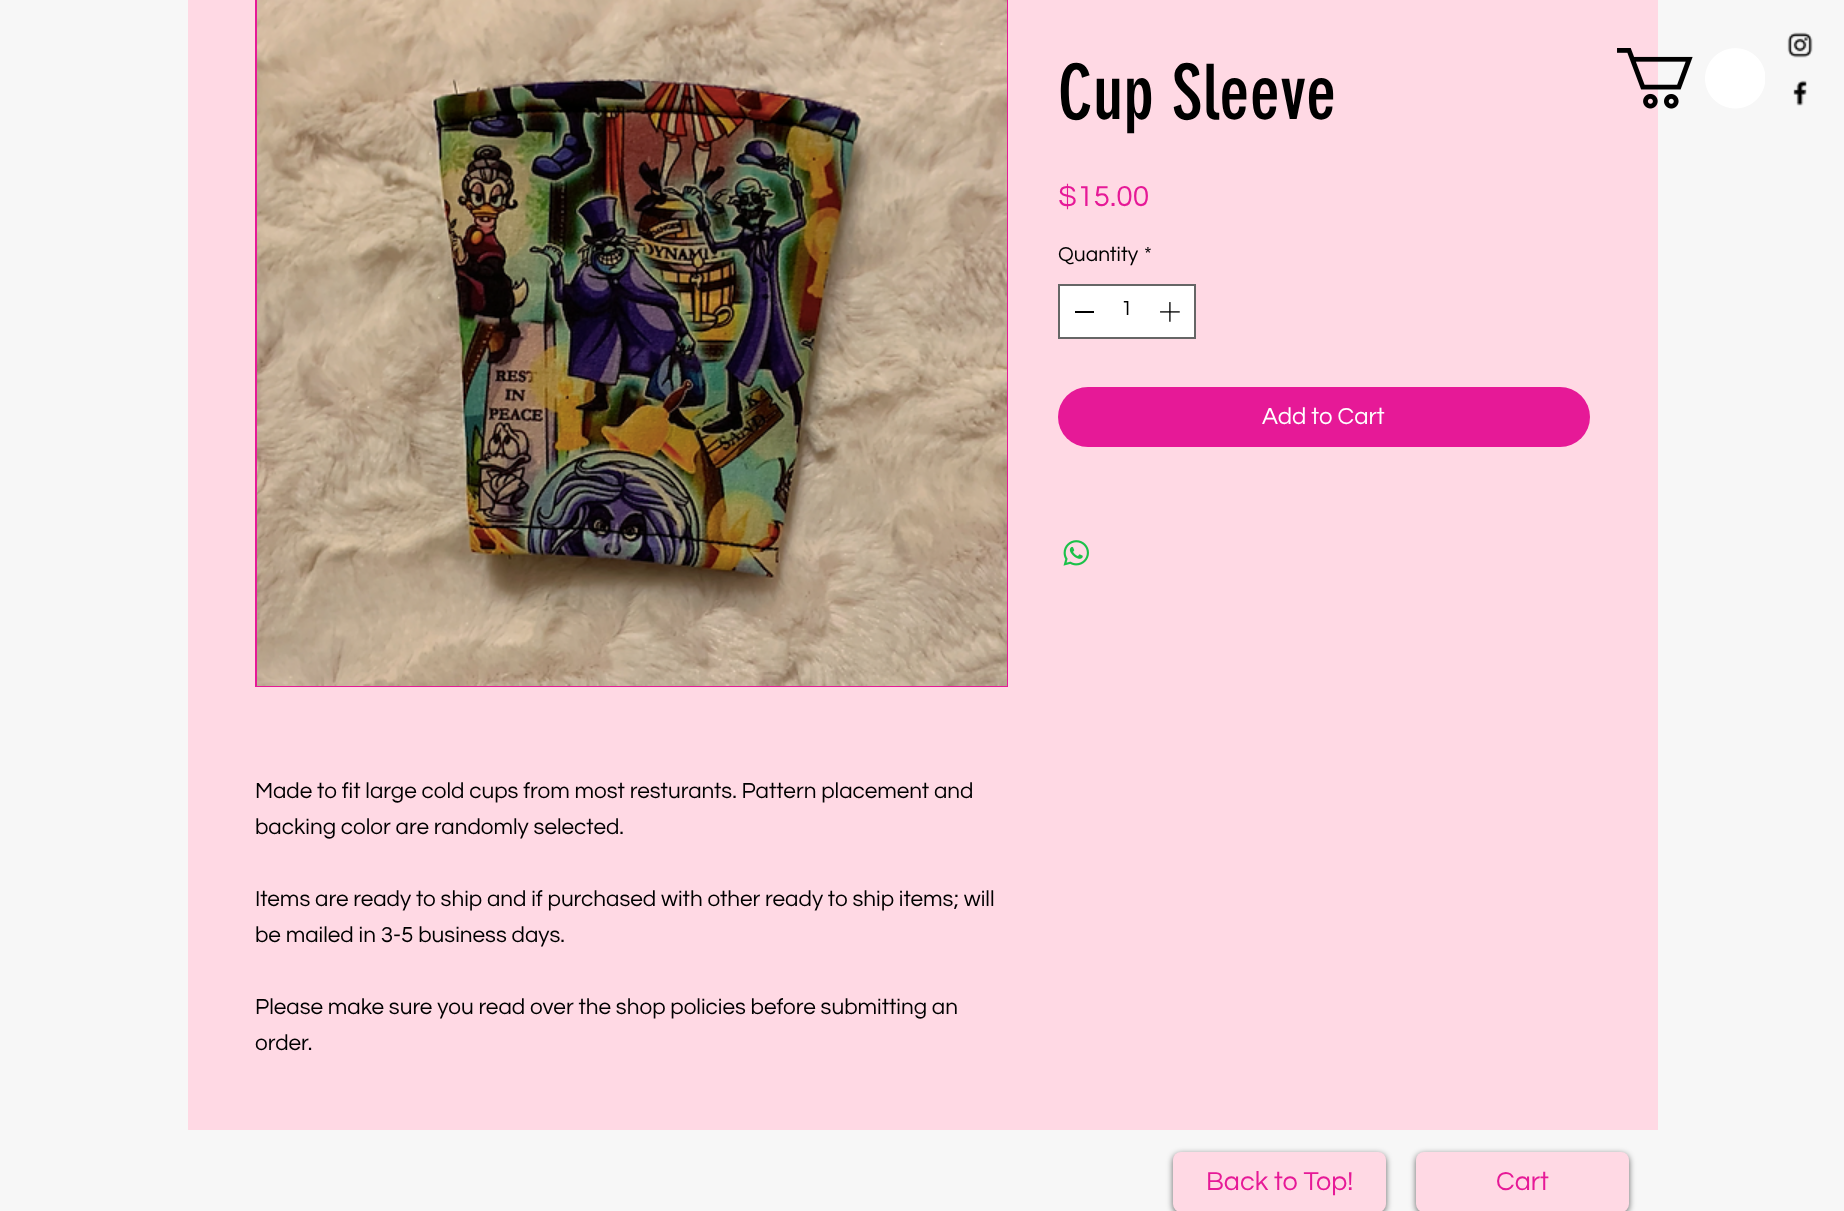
(async () => {
const canvas = document.querySelector("canvas")
canvas.width = 1844
canvas.height = 1211
const c = canvas.getContext("2d")
c.miterLimit = 4
c.fontKerning = "normal"
function T(s,x,y){c.fillText(s,x,y)}
function R(x,y,w,h){c.fillRect(x,y,w,h)}
function Q(x,y,w,h,r){c.beginPath();c.roundRect(x,y,w,h,r);c.fill()}
async function I(src,x,y,w,h){const img=new Image();img.src=src;await img.decode();c.drawImage(img,x,y,w,h)}
c.fillStyle="#f7f7f7"
R(0,0,1844,1211)
c.fillStyle="#ffd9e4"
R(188,0,1470,1130)
c.font="75px 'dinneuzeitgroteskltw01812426'"
c.fillStyle="#000"
T("Cup Sleeve",1058,119)
c.font="30px Questrial"
c.fillStyle="#e61997"
T("$15.00",1058,206)
c.font="21px Questrial"
c.fillStyle="#000"
T("Quantity",1058,261)
T("*",1144,261)
c.fillStyle="#fff"
c.beginPath()
c.rect(1059,285,136,53)
c.fill()
c.strokeStyle="#666"
c.lineWidth=2
c.stroke()
c.fillStyle="#000"
R(1075,311,19,2)
T("1",1121,315)
await I("1.png",1160,302,20,20)
c.fillStyle="#e61997"
Q(1058,387,532,60,30)
c.font="24px Questrial"
c.fillStyle="#fff"
T("Add to Cart",1262,424)
await I("2.png",1063,540,26,26)
c.strokeStyle="#e61997"
c.strokeRect(256,-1,751,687)
await I("3.png",257,0,750,686)
c.font="22.5px Questrial"
c.fillStyle="#000"
T("Made to fit large cold cups from most resturants. Pattern placement and",255,798)
T("backing color are randomly selected.",255,834)
T("Items are ready to ship and if purchased with other ready to ship items; will",255,906)
T("be mailed in 3-5 business days.",255,942)
T("Please make sure you read over the shop policies before submitting an",255,1014)
T("order.",255,1050)
await I("4.png",1617,48,148,61)
await I("5.png",1787,32,26,26)
await I("6.png",1793,80,14,26)
c.fillStyle="#00000099"
c.filter="blur(3px)"
c.beginPath()
c.roundRect(1173,1154,213,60,8)
c.fill()
c.filter="none"
c.fillStyle="#ffd9e4"
Q(1173,1152,213,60,8)
c.font="27px Questrial"
c.fillStyle="#e61997"
T("Back to Top!",1206,1190)
c.fillStyle="#00000099"
c.filter="blur(3px)"
c.beginPath()
c.roundRect(1416,1154,213,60,8)
c.fill()
c.filter="none"
c.fillStyle="#ffd9e4"
Q(1416,1152,213,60,8)
c.fillStyle="#e61997"
T("Cart",1496,1190)
})()
